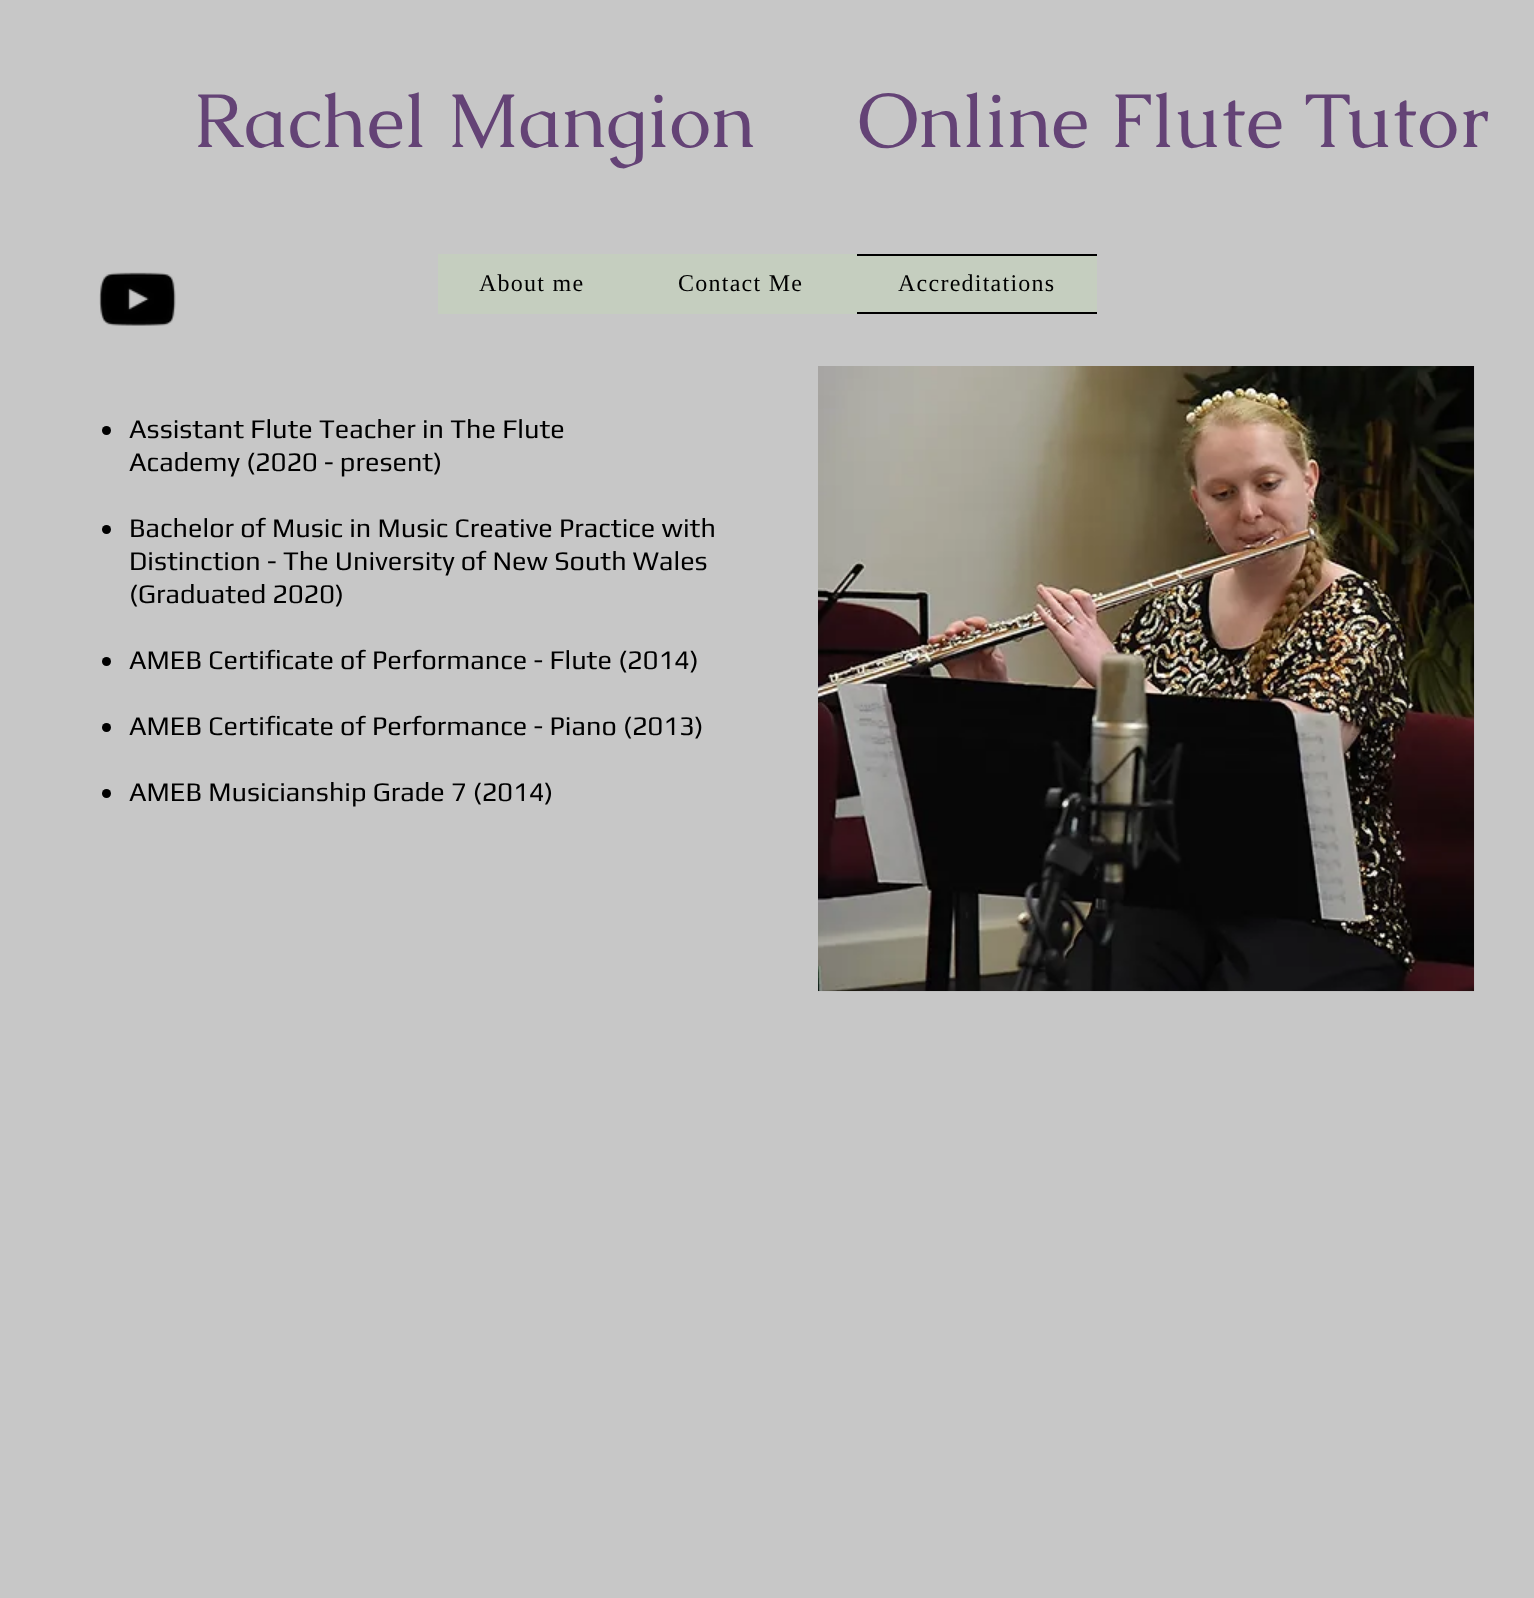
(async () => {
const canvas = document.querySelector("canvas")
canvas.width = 1534
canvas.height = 1598
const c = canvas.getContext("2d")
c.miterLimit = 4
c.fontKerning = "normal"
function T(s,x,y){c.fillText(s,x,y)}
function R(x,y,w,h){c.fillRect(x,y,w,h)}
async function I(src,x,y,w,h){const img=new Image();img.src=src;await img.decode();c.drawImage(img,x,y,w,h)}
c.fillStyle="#c7c7c7"
R(0,0,1534,1598)
c.font="76.5px Caudex"
c.fillStyle="#644376"
T("Rachel Mangion",193,147)
T("Online Flute Tutor",858,147)
await I("1.png",99,272,77,54)
c.fillStyle="#c5cebf"
R(438,254,659,60)
c.letterSpacing="1.25px"
c.font="24px Liberation Serif"
c.fillStyle="#000"
T("About me",479,291)
T("Contact Me",678,291)
R(857,254,240,2)
R(857,312,240,2)
T("Accreditations",898,291)
c.beginPath()
c.arc(106.5,430.5,4.5,0,7)
c.fill()
c.letterSpacing="0px"
c.font="27px Play"
T("Assistant Flute Teacher in The Flute",129,438)
T("Academy (2020 - present)",129,471)
c.beginPath()
c.arc(106.5,529.5,4.5,0,7)
c.fill()
T("Bachelor of Music in Music Creative Practice with",129,537)
T("Distinction - The University of New South Wales",129,570)
T("(Graduated 2020)",129,603)
c.beginPath()
c.arc(106.5,661.5,4.5,0,7)
c.fill()
T("AMEB Certificate of Performance - Flute (2014)",129,669)
c.beginPath()
c.arc(106.5,727.5,4.5,0,7)
c.fill()
T("AMEB Certificate of Performance - Piano (2013)",129,735)
c.beginPath()
c.arc(106.5,793.5,4.5,0,7)
c.fill()
T("AMEB Musicianship Grade 7 (2014)",129,801)
await I("2.png",818,366,657,626)
})()
